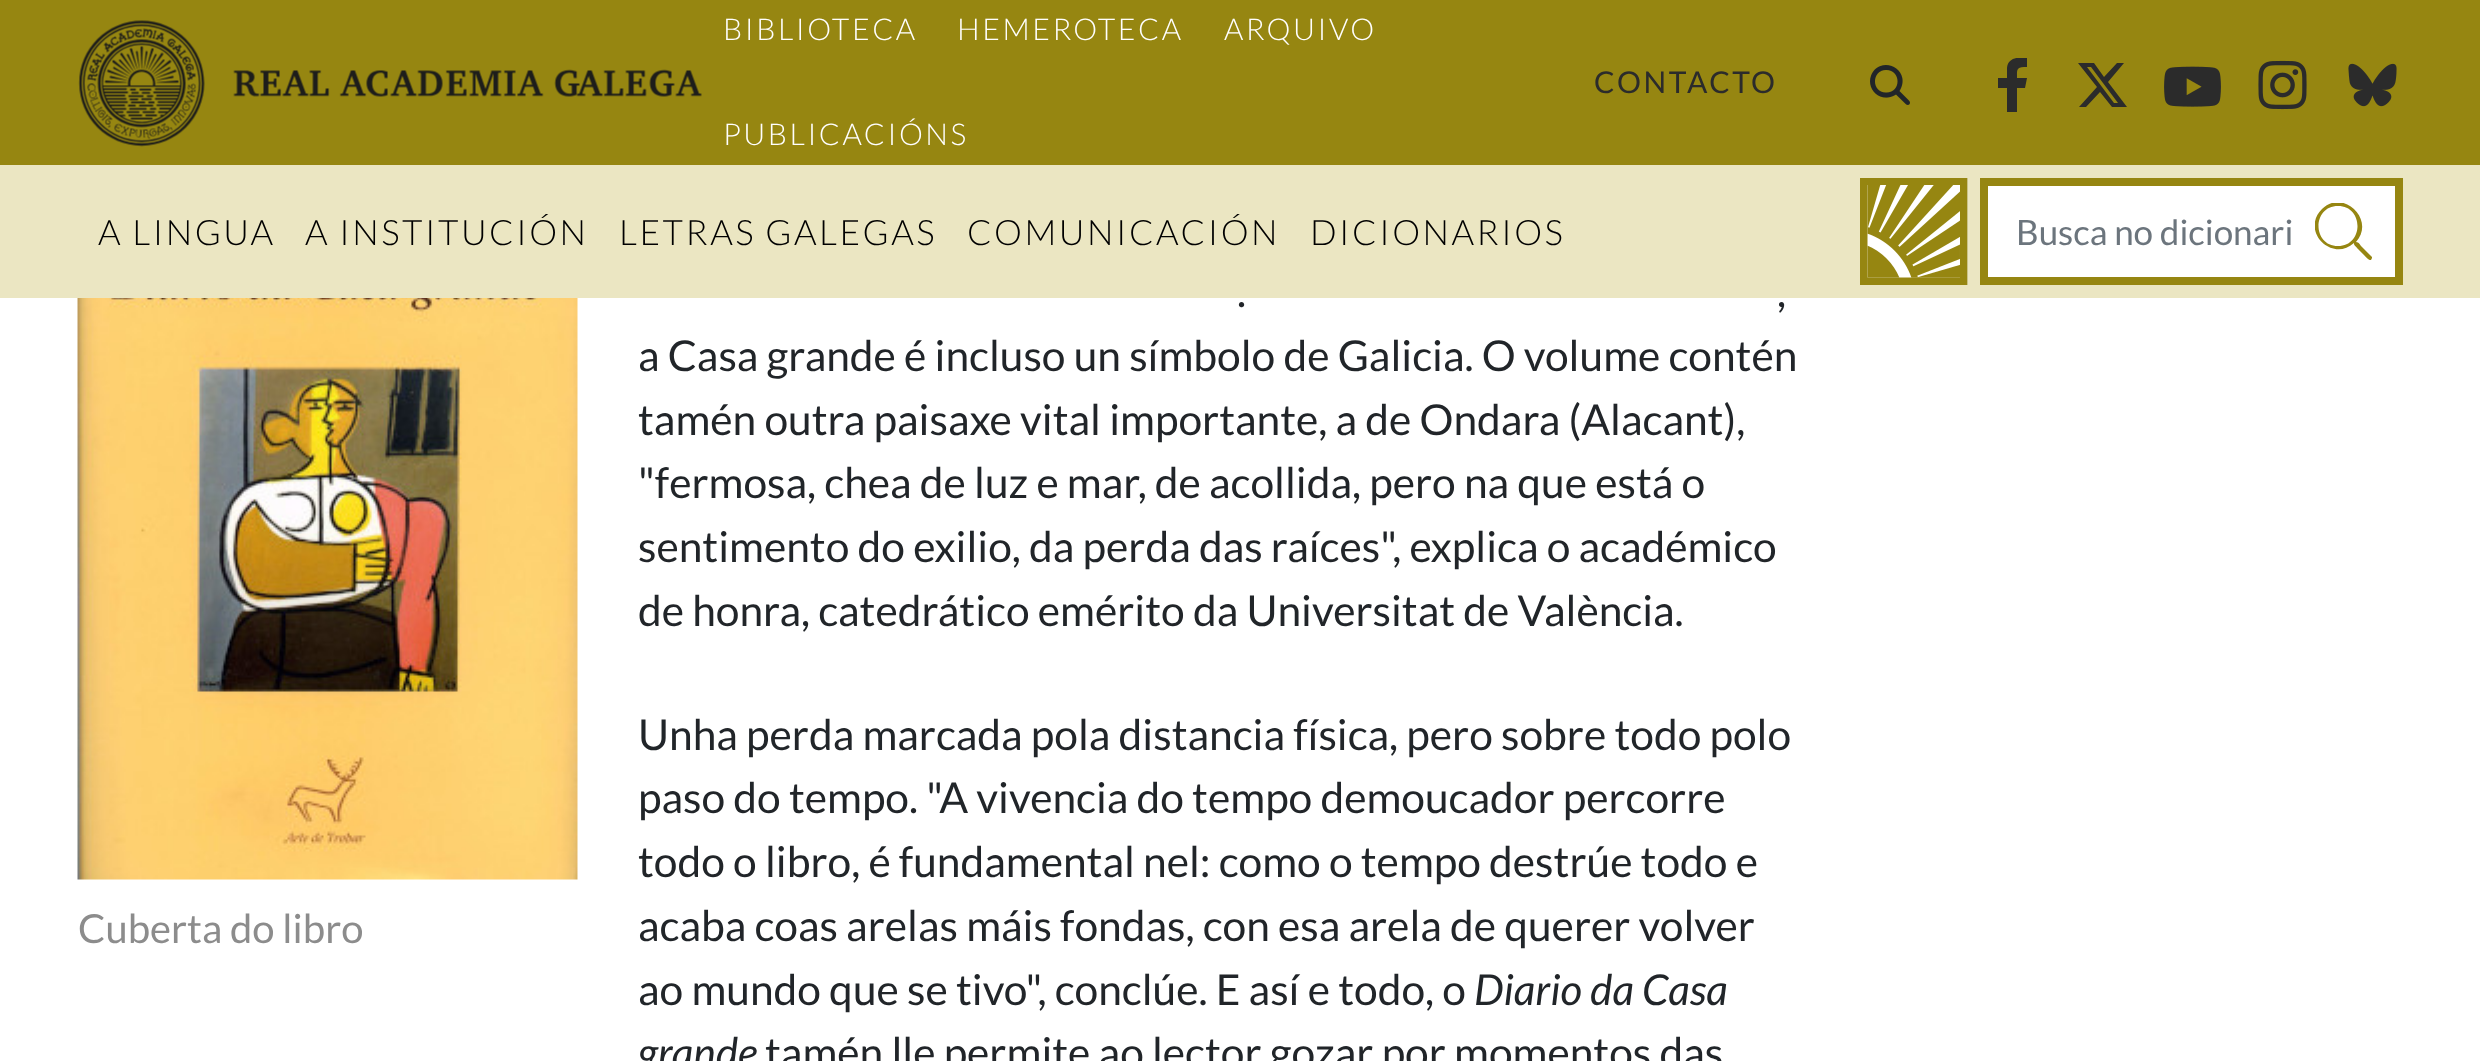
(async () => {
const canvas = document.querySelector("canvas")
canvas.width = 2480
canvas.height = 1061
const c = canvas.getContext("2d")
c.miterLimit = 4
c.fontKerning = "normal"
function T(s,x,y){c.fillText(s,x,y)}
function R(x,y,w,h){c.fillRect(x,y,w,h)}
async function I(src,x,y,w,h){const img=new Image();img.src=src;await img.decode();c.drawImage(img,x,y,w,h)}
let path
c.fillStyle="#fff"
R(0,0,2480,1061)
c.fillStyle="#968611"
R(0,0,2480,165)
await I("1.png",78,20,624,127)
c.letterSpacing="2.5px"
c.font="300 30px Lato"
c.fillStyle="#fff"
T("BIBLIOTECA",723,40)
T("HEMEROTECA",957,40)
T("ARQUIVO",1224,40)
T("PUBLICACIÓNS",723,145)
c.font="30px Lato"
c.fillStyle="#2b2b2b"
T("CONTACTO",1594,93)
await I("2.png",1870,65,40,40)
c.save()
c.beginPath()
c.rect(1983,58,60,55)
c.clip()
path = new Path2D("M2025 88l2-10h-10c0-9-1-11 10-11v-9c-8-1-19-1-20 10v10h-9v10h9v24h10v-24z")
c.fill(path)
c.restore()
path = new Path2D("M2117 63h7l-16 19l19 25h-15l-12-15l-14 15h-7l18-20l-19-24h16l10 14zm-3 40h4l-27-36h-4z")
c.fill(path)
await I("3.png",2164,66,57,41)
await I("4.png",2258,60,49,50)
await I("5.png",2348,63,49,44)
c.fillStyle="#ebe6c2"
R(0,165,2480,133)
c.font="300 35px Lato"
c.fillStyle="#000"
T("A LINGUA",98,245)
T("A INSTITUCIÓN",305,245)
T("LETRAS GALEGAS",619,245)
T("COMUNICACIÓN",967,245)
T("DICIONARIOS",1310,245)
c.fillStyle="#fff"
R(1867,178,101,107)
await I("6.png",1860,178,108,107)
c.beginPath()
c.rect(1984,182,415,99)
c.fill()
c.strokeStyle="#968611"
c.lineWidth=8
c.stroke()
c.letterSpacing="0px"
c.font="35px Lato"
c.fillStyle="#6c757d"
T("Busca no dicionari",2016,245)
c.save()
c.beginPath()
c.rect(2315,203,58,57)
c.clip()
c.fillStyle="#968611"
path = new Path2D("M2372 257l-10-10c-2-2-3-5-6-5c20-22-13-54-34-33c-22 22 10 54 32 34c0 3 1 2 3 5l7 7c1 1 5 6 7 5l1-2zm-34-11c-26 0-26-40 0-40c26 0 26 40 0 40z")
c.fill(path)
c.restore()
c.font="42.5px Lato"
c.fillStyle="#212529"
T(".",1237,307)
T(",",1777,307)
T("a Casa grande é incluso un símbolo de Galicia. O volume contén",638,371)
T("tamén outra paisaxe vital importante, a de Ondara (Alacant),",638,435)
T("\"fermosa, chea de luz e mar, de acollida, pero na que está o",638,498)
T("sentimento do exilio, da perda das raíces\", explica o académico",638,562)
T("de honra, catedrático emérito da Universitat de València.",638,626)
await I("7.png",77,298,501,582)
c.font="40px Lato"
c.fillStyle="#8c8c8c"
T("Cuberta do libro",78,943)
c.font="42.5px Lato"
c.fillStyle="#212529"
T("Unha perda marcada pola distancia física, pero sobre todo polo",638,750)
T("paso do tempo. \"A vivencia do tempo demoucador percorre",638,813)
T("todo o libro, é fundamental nel: como o tempo destrúe todo e",638,877)
T("acaba coas arelas máis fondas, con esa arela de querer volver",638,941)
T("ao mundo que se tivo\", conclúe. E así e todo, o",638,1005)
c.font="italic 42.5px Lato"
T("Diario da Casa",1474,1005)
T("grande",638,1068)
c.font="42.5px Lato"
T("tamén lle permite ao lector gozar por momentos das",765,1068)
})()
